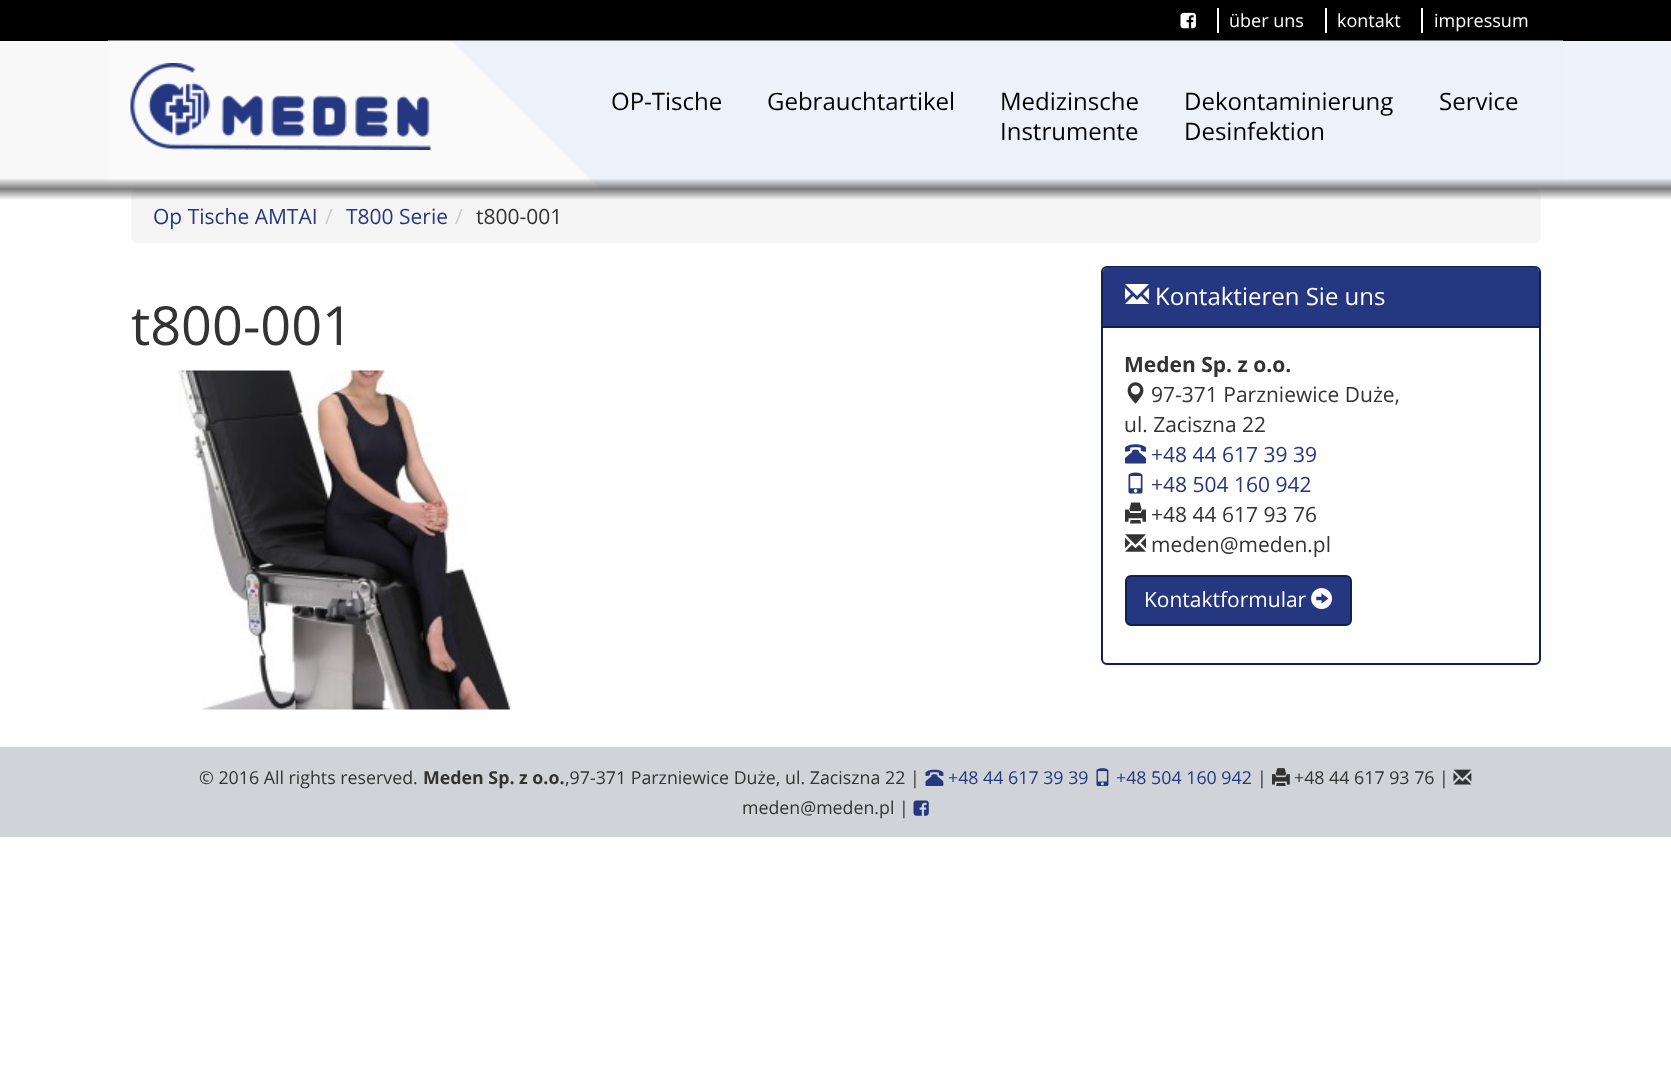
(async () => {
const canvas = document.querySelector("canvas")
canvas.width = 1671
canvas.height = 1081
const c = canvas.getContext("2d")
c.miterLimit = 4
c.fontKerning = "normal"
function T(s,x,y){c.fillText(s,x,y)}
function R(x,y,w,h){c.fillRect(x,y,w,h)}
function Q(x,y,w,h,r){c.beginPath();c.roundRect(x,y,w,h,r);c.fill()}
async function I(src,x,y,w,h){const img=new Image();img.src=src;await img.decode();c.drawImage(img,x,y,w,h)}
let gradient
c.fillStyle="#fff"
R(0,0,1671,1081)
c.fillStyle="#000"
R(0,0,1671,41)
await I("1.png",1180,12,16,17)
c.fillStyle="#fff"
R(1217,8,2,25)
c.font="18px Open Sans"
T("über uns",1229,27)
R(1325,8,2,25)
T("kontakt",1337,27)
R(1421,8,2,25)
T("impressum",1434,27)
c.fillStyle="#f8f8f8"
R(0,41,108,148)
await I("2.png",108,40,1455,149)
await I("3.png",130,63,301,87)
c.font="24px Open Sans"
c.fillStyle="#000"
T("OP-Tische",611,110)
T("Gebrauchtartikel",767,110)
T("Medizinsche",1000,110)
T("Instrumente",1000,140)
T("Dekontaminierung",1184,110)
T("Desinfektion",1184,140)
T("Service",1439,110)
c.fillStyle="#edf3fb"
R(1563,41,108,148)
gradient = c.createLinearGradient(836,178,836,189)
gradient.addColorStop(0,"#00000000")
gradient.addColorStop(1,"#00000080")
c.fillStyle = gradient
R(0,179,1671,10)
c.fillStyle="#f5f5f5"
Q(131,189,1410,54,6)
gradient = c.createLinearGradient(836,200,836,189)
gradient.addColorStop(0,"#00000000")
gradient.addColorStop(1,"#00000080")
c.fillStyle = gradient
R(0,189,1671,11)
c.font="21px Open Sans"
c.fillStyle="#253780"
T("Op Tische AMTAI",153,224)
c.fillStyle="#ccc"
T("/",325,224)
c.fillStyle="#253780"
T("T800 Serie",346,224)
c.fillStyle="#ccc"
T("/",455,224)
c.fillStyle="#333"
T("t800-001",476,224)
c.font="54px Open Sans"
T("t800-001",131,345)
await I("4.png",178,370,334,340)
c.fillStyle="#0000000d"
c.filter="blur(1px)"
c.beginPath()
c.roundRect(1101,267,440,399,6)
c.fill()
c.filter="none"
c.fillStyle="#fff"
c.beginPath()
c.roundRect(1102,267,438,397,5)
c.fill()
c.strokeStyle="#13204e"
c.lineWidth=2
c.stroke()
c.fillStyle="#253780"
c.beginPath()
c.roundRect(1103,267,436,60,[5,5,0,0])
c.fill()
c.fillStyle="#13204e"
R(1103,326,436,2)
await I("5.png",1125,284,24,20)
c.font="24px Open Sans"
c.fillStyle="#fff"
T("Kontaktieren Sie uns",1155,305)
c.font="bold 21px Open Sans"
c.fillStyle="#333"
T("Meden Sp. z o.o.",1124,372)
await I("6.png",1127,382,17,22)
c.font="21px Open Sans"
T("97-371 Parzniewice Duże,",1151,402)
T("ul. Zaciszna 22",1124,432)
await I("7.png",1125,444,21,20)
c.fillStyle="#253780"
T("+48 44 617 39 39",1151,462)
await I("8.png",1128,472,15,22)
T("+48 504 160 942",1151,492)
await I("9.png",1125,502,21,22)
c.fillStyle="#333"
T("+48 44 617 93 76",1151,522)
await I("10.png",1125,534,21,18)
T("meden@meden.pl",1151,552)
c.fillStyle="#253780"
c.beginPath()
c.roundRect(1126,576,225,49,5)
c.fill()
c.stroke()
c.fillStyle="#fff"
T("Kontaktformular",1144,607)
await I("11.png",1311,588,21,21)
c.fillStyle="#d0d3d8"
R(0,747,1671,90)
c.font="17.8px Open Sans"
c.fillStyle="#333"
T("© 2016 All rights reserved.",199,784)
c.font="bold 17.8px Open Sans"
T("Meden Sp. z o.o.",423,784)
c.font="17.8px Open Sans"
T(",97-371 Parzniewice Duże, ul. Zaciszna 22 |",565,784)
await I("12.png",925,769,19,17)
c.fillStyle="#253780"
T("+48 44 617 39 39",948,784)
await I("13.png",1096,768,13,18)
T("+48 504 160 942",1116,784)
c.fillStyle="#333"
T("|",1257,784)
await I("14.png",1272,768,18,18)
T("+48 44 617 93 76 |",1294,784)
await I("15.png",1453,769,19,16)
T("meden@meden.pl |",742,814)
await I("16.png",913,800,16,16)
})()
